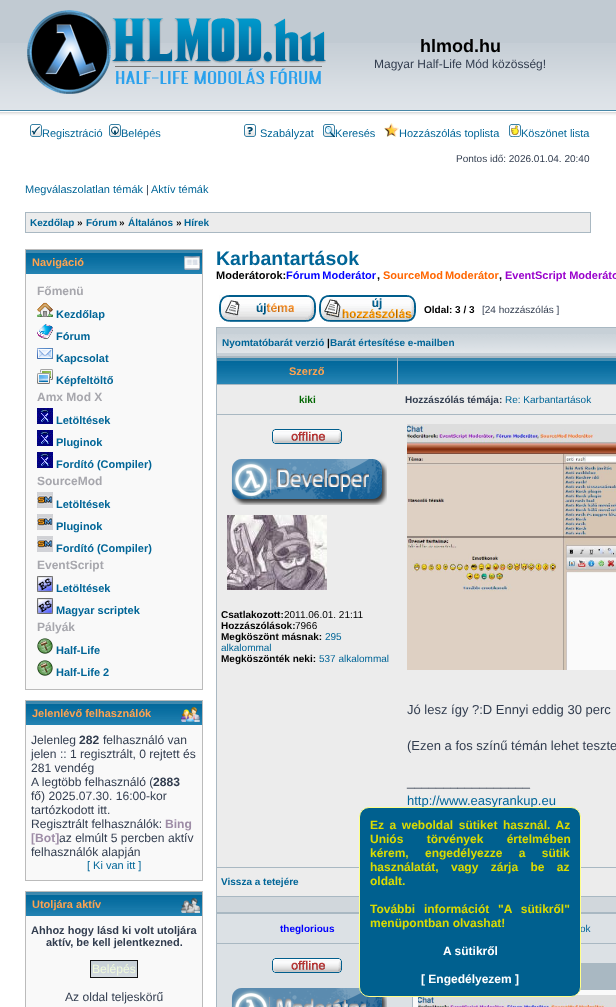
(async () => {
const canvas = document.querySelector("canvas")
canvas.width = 616
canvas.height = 1007
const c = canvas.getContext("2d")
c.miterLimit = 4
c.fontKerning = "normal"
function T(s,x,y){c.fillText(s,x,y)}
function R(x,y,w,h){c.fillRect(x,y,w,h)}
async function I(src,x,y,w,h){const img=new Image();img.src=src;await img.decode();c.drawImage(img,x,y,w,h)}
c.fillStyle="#fff"
R(0,0,616,1007)
c.fillStyle="#c1cad2"
R(0,0,616,43)
await I("1.png",0,43,616,78)
await I("2.png",27,10,299,84)
c.font="bold 18px Liberation Sans"
c.fillStyle="#000"
T("hlmod.hu",420,52)
c.font="12px Liberation Sans"
c.fillStyle="#323d4f"
T("Magyar Half-Life Mód közösség!",374,68)
await I("3.png",30,124,12,13)
c.font="11px Liberation Sans"
c.fillStyle="#006597"
T("Regisztráció",42,137)
await I("4.png",109,124,12,13)
T("Belépés",121,137)
await I("5.png",244,124,12,13)
T("Szabályzat",260,137)
await I("6.png",323,124,12,13)
T("Keresés",335,137)
await I("7.png",384,123,15,14)
T("Hozzászólás toplista",399,137)
await I("8.png",509,124,12,13)
T("Köszönet lista",521,137)
c.font="10px Liberation Sans"
c.fillStyle="#323d4f"
T("Pontos idő: 2026.01.04. 20:40",456,162)
c.font="11px Liberation Sans"
c.fillStyle="#006597"
T("Megválaszolatlan témák",25,193)
c.fillStyle="#323d4f"
T("|",146,193)
c.fillStyle="#006597"
T("Aktív témák",151,193)
c.fillStyle="#a9b8c2"
R(25,212,566,21)
c.fillStyle="#ececec"
R(26,213,564,19)
c.font="bold 10px Liberation Sans"
c.fillStyle="#006597"
T("Kezdőlap",30,226)
c.fillStyle="#000"
T("»",77,226)
c.fillStyle="#006597"
T("Fórum",86,226)
c.fillStyle="#000"
T("»",119,226)
c.fillStyle="#006597"
T("Általános",128,226)
c.fillStyle="#000"
T("»",176,226)
c.fillStyle="#006597"
T("Hírek",184,226)
c.fillStyle="#f9f9f9"
R(26,274,176,415)
c.strokeStyle="#bbb"
c.strokeRect(25.5,249.5,177,440)
await I("9.png",26,250,176,24)
c.font="bold 11px Liberation Sans"
c.fillStyle="#ffa34f"
T("Navigáció",32,266)
await I("10.png",184,256,16,14)
c.font="bold 12px Liberation Sans"
c.fillStyle="#a7a7ad"
T("Főmenü",37,295)
await I("11.png",37,302,16,15)
c.font="bold 11px Liberation Sans"
c.fillStyle="#006597"
T("Kezdőlap",56,318)
await I("12.png",37,324,16,15)
T("Fórum",56,340)
await I("13.png",37,348,16,11)
T("Kapcsolat",56,362)
await I("14.png",37,369,16,15)
T("Képfeltöltő",56,384)
c.font="bold 12px Liberation Sans"
c.fillStyle="#a7a7ad"
T("Amx Mod X",37,401)
await I("15.png",37,408,16,16)
c.font="bold 11px Liberation Sans"
c.fillStyle="#006597"
T("Letöltések",56,424)
await I("15.png",37,430,16,16)
T("Pluginok",56,446)
await I("15.png",37,452,16,16)
T("Fordító (Compiler)",56,468)
c.font="bold 12px Liberation Sans"
c.fillStyle="#a7a7ad"
T("SourceMod",37,485)
await I("16.png",37,492,16,16)
c.font="bold 11px Liberation Sans"
c.fillStyle="#006597"
T("Letöltések",56,508)
await I("16.png",37,514,16,16)
T("Pluginok",56,530)
await I("16.png",37,536,16,16)
T("Fordító (Compiler)",56,552)
c.font="bold 12px Liberation Sans"
c.fillStyle="#a7a7ad"
T("EventScript",37,569)
await I("17.png",37,576,16,16)
c.font="bold 11px Liberation Sans"
c.fillStyle="#006597"
T("Letöltések",56,592)
await I("17.png",37,598,16,16)
T("Magyar scriptek",56,614)
c.font="bold 12px Liberation Sans"
c.fillStyle="#a7a7ad"
T("Pályák",37,631)
await I("18.png",37,638,16,16)
c.font="bold 11px Liberation Sans"
c.fillStyle="#006597"
T("Half-Life",56,654)
await I("18.png",37,660,16,16)
T("Half-Life 2",56,676)
c.fillStyle="#f9f9f9"
R(26,725,176,155)
c.strokeRect(25.5,700.5,177,180)
await I("9.png",26,701,176,24)
c.fillStyle="#ffa34f"
T("Jelenlévő felhasználók",32,717)
await I("19.png",181,707,19,15)
c.font="12.1px Liberation Sans"
c.fillStyle="#323d4f"
T("Jelenleg",31,744)
c.font="bold 12.1px Liberation Sans"
T("282",79,744)
c.font="12.1px Liberation Sans"
T("felhasználó van",103,744)
T("jelen :: 1 regisztrált, 0 rejtett és",31,758)
T("281 vendég",31,772)
T("A legtöbb felhasználó (",31,786)
c.font="bold 12.1px Liberation Sans"
T("2883",153,786)
c.font="12.1px Liberation Sans"
T("fő) 2025.07.30. 16:00-kor",31,800)
T("tartózkodott itt.",31,814)
T("Regisztrált felhasználók:",31,828)
c.font="bold 12.1px Liberation Sans"
c.fillStyle="#9e8da7"
T("Bing",165,828)
T("[Bot]",31,842)
c.font="12.1px Liberation Sans"
c.fillStyle="#323d4f"
T("az elmúlt 5 percben aktív",59,842)
T("felhasználók alapján",31,856)
c.font="11px Liberation Sans"
c.fillStyle="#006597"
T("[ Ki van itt ]",87,869)
c.fillStyle="#f9f9f9"
R(26,916,176,91)
c.strokeRect(25.5,891.5,177,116)
await I("9.png",26,892,176,24)
c.font="bold 11px Liberation Sans"
c.fillStyle="#ffa34f"
T("Utoljára aktív",32,908)
await I("20.png",181,898,19,15)
c.fillStyle="#323d4f"
T("Ahhoz hogy lásd ki volt utoljára",31,934)
T("aktív, be kell jelentkezned.",46,946)
await I("21.png",91,961,46,16)
c.strokeStyle="#121212"
c.strokeRect(90.5,960.5,47,17)
c.font="12.1px Liberation Sans"
c.fillStyle="#f0fadc"
T("Belépés",92,973)
c.fillStyle="#323d4f"
T("Az oldal teljeskörű",65,1001)
c.font="bold 19.5px Liberation Sans"
c.fillStyle="#006597"
T("Karbantartások",216,265)
c.font="bold 11px Liberation Sans"
c.fillStyle="#000"
T("Moderátorok:",216,279)
c.wordSpacing="-1px"
c.fillStyle="#00f"
T("Fórum Moderátor",286,279)
c.wordSpacing="0px"
c.fillStyle="#000"
T(",",377,279)
c.wordSpacing="-1px"
c.fillStyle="#f60"
T("SourceMod Moderátor",383,279)
c.wordSpacing="0px"
c.fillStyle="#000"
T(",",499,279)
c.fillStyle="#90c"
T("EventScript Moderáto",505,279)
await I("22.png",219,295,97,27)
await I("23.png",319,295,97,27)
c.font="bold 10px Liberation Sans"
c.fillStyle="#000"
T("Oldal: 3 / 3",424,313)
c.font="10px Liberation Sans"
c.fillStyle="#323d4f"
T("[24 hozzászólás ]",482,313)
c.fillStyle="#a9b8c2"
R(216,327,400,680)
c.fillStyle="#c7d0d7"
R(217,328,399,28)
await I("24.png",217,334,399,19)
c.font="bold 10px Liberation Sans"
c.fillStyle="#006597"
T("Nyomtatóbarát verzió",222,346)
c.fillStyle="#000"
T("|",327,346)
c.fillStyle="#006597"
T("Barát értesítése e-mailben",330,346)
await I("25.png",217,358,180,26)
c.font="bold 11px Liberation Sans"
c.fillStyle="#ffa34f"
T("Szerző",289,375)
await I("26.png",398,358,218,26)
c.fillStyle="#ececec"
R(217,385,399,29)
c.font="bold 10px Liberation Sans"
c.fillStyle="#060"
T("kiki",299,403)
c.fillStyle="#323d4f"
T("Hozzászólás témája:",405,403)
c.font="10px Liberation Sans"
c.fillStyle="#006597"
T("Re: Karbantartások",505,403)
c.fillStyle="#ececec"
R(217,415,399,452)
await I("27.png",272,429,70,15)
await I("28.png",231,459,156,46)
await I("29.png",227,515,100,75)
c.font="bold 10px Liberation Sans"
c.fillStyle="#000"
T("Csatlakozott:",221,618)
c.font="10px Liberation Sans"
T("2011.06.01. 21:11",284,618)
c.font="bold 10px Liberation Sans"
T("Hozzászólások:",221,629)
c.font="10px Liberation Sans"
T("7966",295,629)
c.font="bold 10px Liberation Sans"
T("Megköszönt másnak:",221,640)
c.font="10px Liberation Sans"
c.fillStyle="#006597"
T("295",325,640)
T("alkalommal",221,651)
c.font="bold 10px Liberation Sans"
c.fillStyle="#000"
T("Megköszönték neki:",221,662)
c.font="10px Liberation Sans"
c.fillStyle="#006597"
T("537 alkalommal",319,662)
await I("30.png",407,424,209,246)
c.font="13px Liberation Sans"
c.fillStyle="#323d4f"
T("Jó lesz így ?:D Ennyi eddig 30 perc",407,714)
T("(Ezen a fos színű témán lehet teszte",407,750)
T("_________________",407,786)
c.fillStyle="#006597"
T("http://www.easyrankup.eu",407,805)
c.fillStyle="#ececec"
R(217,868,399,28)
c.font="bold 10px Liberation Sans"
c.fillStyle="#006597"
T("Vissza a tetejére",221,885)
c.fillStyle="#d1d7dc"
R(217,897,399,15)
c.fillStyle="#dce1e5"
R(217,914,399,29)
c.fillStyle="#00f"
T("theglorious",280,932)
c.font="10px Liberation Sans"
c.fillStyle="#006597"
T("ok",580,932)
c.fillStyle="#dce1e5"
R(217,944,399,63)
await I("31.png",272,958,70,15)
await I("32.png",231,988,156,19)
c.fillStyle="#a9b8c2"
R(580,964,36,26)
R(581,963,35,1)
c.fillStyle="#fafafa"
R(413,990,203,17)
c.fillStyle="#a9b8c2"
R(412,990,1,17)
await I("33.png",418,995,198,12)
c.fillStyle="#00608f"
c.beginPath()
c.roundRect(359.5,807.5,221,189,9.5)
c.fill()
c.strokeStyle="#ffff8a"
c.stroke()
c.wordSpacing="2.25px"
c.font="bold 12px Liberation Sans"
c.fillStyle="#dbdb00"
T("Ez a weboldal sütiket használ. Az",370,829)
c.wordSpacing="20px"
T("Uniós törvények értelmében",370,843)
c.wordSpacing="13px"
T("kérem, engedélyezze a sütik",370,857)
c.wordSpacing="9px"
T("használatát, vagy zárja be az",370,871)
c.wordSpacing="0px"
T("oldalt.",370,885)
c.wordSpacing="5.5px"
T("További információt \"A sütikről\"",370,913)
c.wordSpacing="0px"
T("menüpontban olvashat!",370,927)
c.fillStyle="#fff"
T("A sütikről",443,955)
T("[ Engedélyezem ]",421,983)
})()
